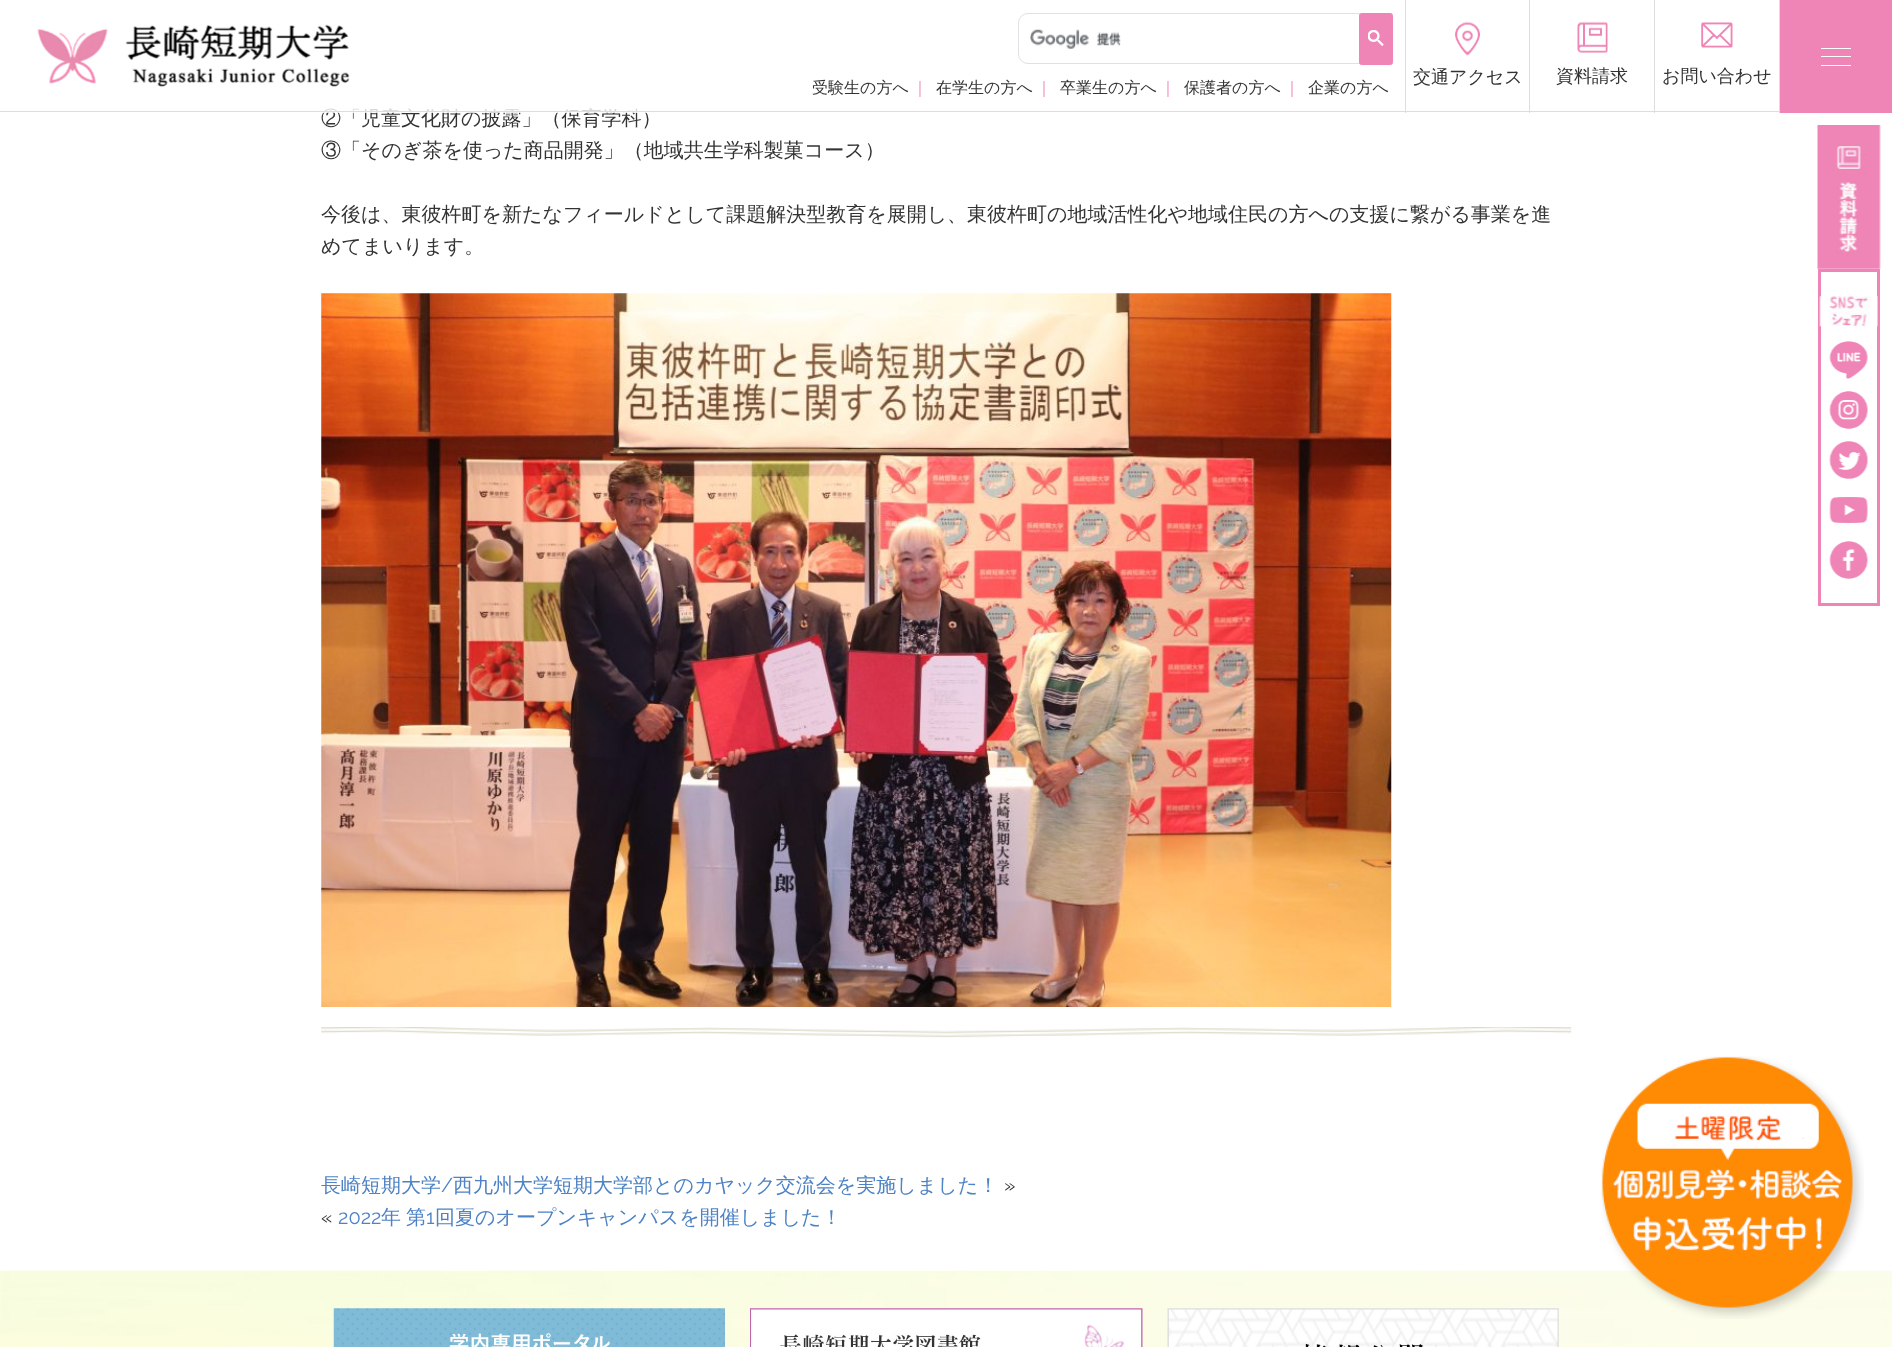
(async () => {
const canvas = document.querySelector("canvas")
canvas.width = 1892
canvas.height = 1347
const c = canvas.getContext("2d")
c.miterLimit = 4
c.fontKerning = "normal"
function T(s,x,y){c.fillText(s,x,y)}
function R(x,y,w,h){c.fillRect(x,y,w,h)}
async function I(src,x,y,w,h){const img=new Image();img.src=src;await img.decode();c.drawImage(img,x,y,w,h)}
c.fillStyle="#fff"
R(0,0,1892,1347)
c.font="500 20px WenQuanYi Zen Hei"
c.fillStyle="#333"
T("②「児童文化財の披露」（保育学科）",321,125)
c.fillStyle="#ffffffcc"
R(323,107,324,6)
c.fillStyle="#ddd"
R(0,111,1779,1)
await I("1.png",37,24,314,64)
R(1529,0,1,113)
R(1405,0,1,113)
await I("2.png",1455,21,25,35)
c.font="500 18px WenQuanYi Zen Hei"
c.fillStyle="#333"
T("交通アクセス",1413,83)
c.fillStyle="#ddd"
R(1654,0,1,113)
await I("3.png",1577,21,31,32)
c.fillStyle="#333"
T("資料請求",1556,82)
c.fillStyle="#ddd"
R(1779,0,1,113)
await I("4.png",1701,22,32,26)
c.fillStyle="#333"
T("お問い合わせ",1662,82)
c.beginPath()
c.roundRect(1018.5,13.5,341,50,[9.5,0,0,9.5])
c.strokeStyle="#dfe1e5"
c.stroke()
await I("5.png",1030,29,91,20)
c.fillStyle="#ef85b6"
c.beginPath()
c.roundRect(1359.5,13.5,33,51,2)
c.fill()
c.strokeStyle="#ef85b6"
c.stroke()
await I("6.png",1368,30,16,16)
c.font="500 16px WenQuanYi Zen Hei"
c.fillStyle="#333"
T("受験生の方へ",812,93)
c.fillStyle="#ef85b6"
T("｜",912,93)
c.fillStyle="#333"
T("在学生の方へ",936,93)
c.fillStyle="#ef85b6"
T("｜",1036,93)
c.fillStyle="#333"
T("卒業生の方へ",1060,93)
c.fillStyle="#ef85b6"
T("｜",1160,93)
c.fillStyle="#333"
T("保護者の方へ",1184,93)
c.fillStyle="#ef85b6"
T("｜",1284,93)
c.fillStyle="#333"
T("企業の方へ",1308,93)
c.fillStyle="#ef85b6"
R(1780,0,112,113)
c.fillStyle="#fff"
R(1821,48,30,1)
R(1821,56,30,1)
R(1821,65,30,1)
c.font="500 20px WenQuanYi Zen Hei"
c.fillStyle="#333"
T("③「そのぎ茶を使った商品開発」（地域共生学科製菓コース）",321,157)
T("今後は、東彼杵町を新たなフィールドとして課題解決型教育を展開し、東彼杵町の地域活性化や地域住民の方への支援に繋がる事業を進",321,221)
T("めてまいります。",321,253)
await I("7.png",321,293,1071,714)
await I("8.png",321,1027,1251,11)
c.fillStyle="#4d82c4"
T("長崎短期大学",321,1192)
c.font="20px Raleway"
T("/",441,1192)
c.font="500 20px WenQuanYi Zen Hei"
T("西九州大学短期大学部とのカヤック交流会を実施しました！",453,1192)
c.font="20px Raleway"
c.fillStyle="#333"
T("»",1004,1192)
T("«",321,1224)
c.fillStyle="#4d82c4"
T("2022",338,1224)
c.wordSpacing="-1px"
c.font="500 20px WenQuanYi Zen Hei"
T("年 第",381,1224)
c.wordSpacing="0px"
c.font="20px Raleway"
T("1",426,1224)
c.font="500 20px WenQuanYi Zen Hei"
T("回夏のオープンキャンパスを開催しました！",435,1224)
await I("10.png",0,1270,1892,77)
await I("9.png",1601,1056,263,263)
await I("11.png",333,1308,392,39)
await I("12.png",750,1308,393,39)
await I("13.png",1167,1308,392,39)
await I("14.png",1817,125,64,144)
c.lineWidth=3
c.strokeRect(1819.5,270.5,59,334)
await I("15.png",1819,296,59,31)
await I("16.png",1829,341,39,38)
await I("17.png",1829,391,39,38)
await I("18.png",1829,441,39,38)
await I("19.png",1829,497,39,26)
await I("20.png",1829,541,39,38)
})()
